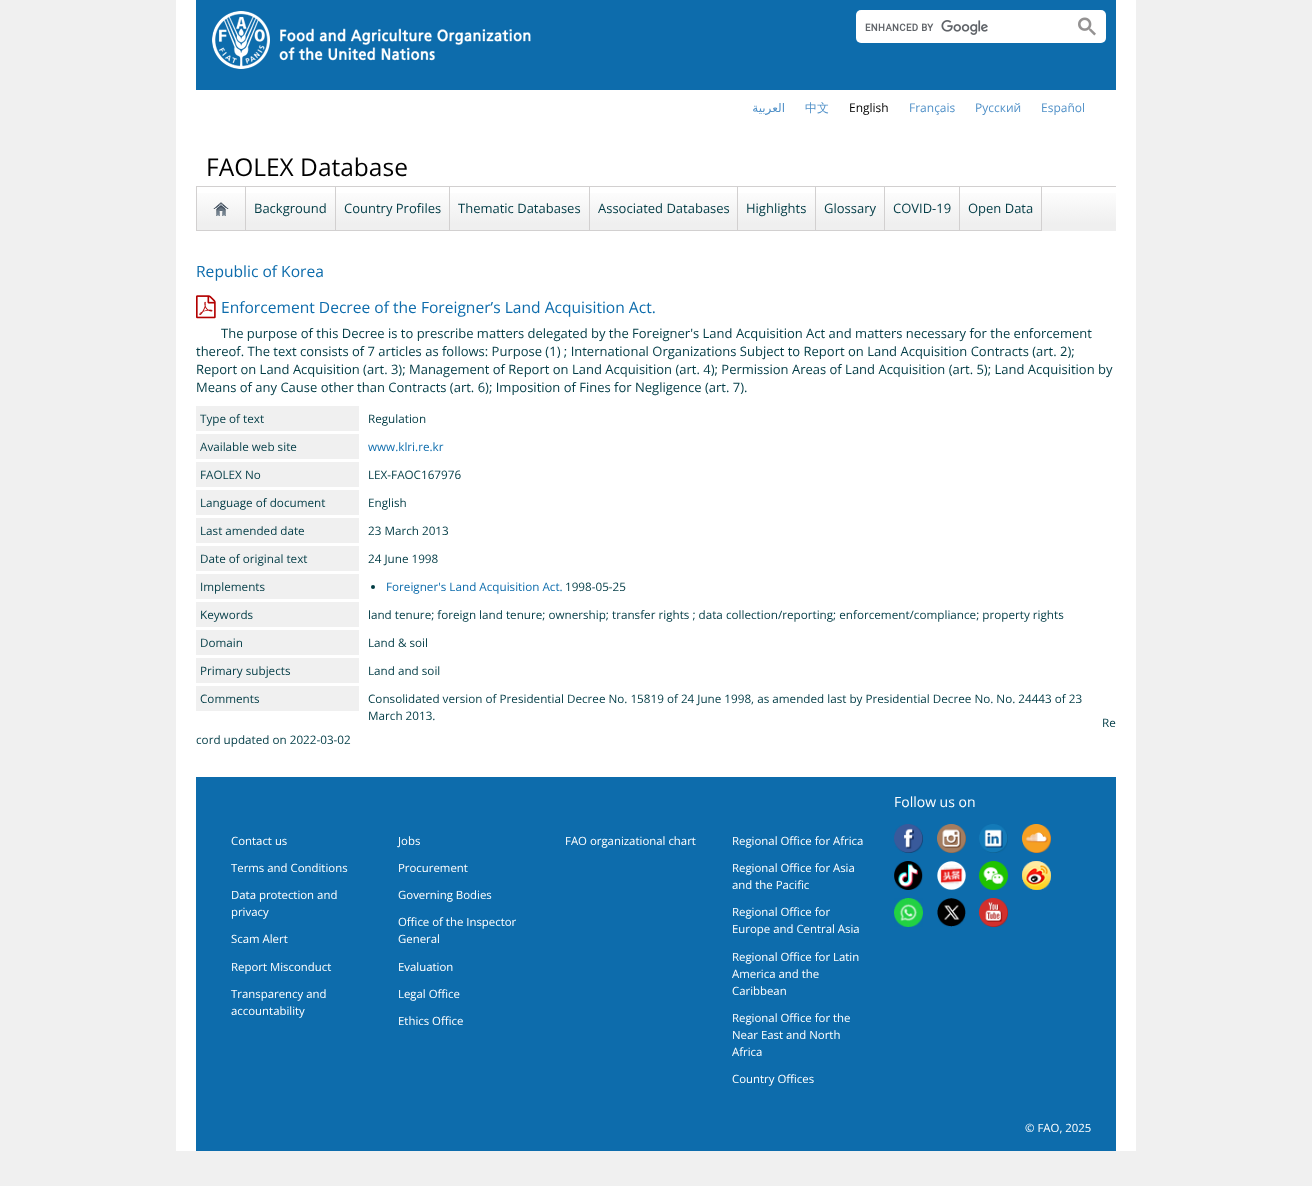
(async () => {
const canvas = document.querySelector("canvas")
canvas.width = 1312
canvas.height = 1186
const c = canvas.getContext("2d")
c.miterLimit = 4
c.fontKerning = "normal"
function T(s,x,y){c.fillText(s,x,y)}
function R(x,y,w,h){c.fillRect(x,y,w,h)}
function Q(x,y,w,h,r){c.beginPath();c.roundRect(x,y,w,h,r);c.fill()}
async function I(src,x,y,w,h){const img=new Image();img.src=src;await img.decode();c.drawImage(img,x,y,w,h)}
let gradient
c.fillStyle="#f0f0f0"
R(0,0,1312,1186)
c.fillStyle="#fff"
R(176,0,960,1151)
c.fillStyle="#0d6cac"
R(196,0,920,90)
await I("1.png",212,11,319,58)
c.fillStyle="#fff"
Q(856,10,250,33,5)
await I("2.png",865,20,123,15)
await I("3.png",1078,17,18,19)
c.direction="rtl"
c.font="12px DejaVu Sans"
c.fillStyle="#5191c8"
T("العربية",785,112)
c.direction="ltr"
c.font="500 12px WenQuanYi Zen Hei"
T("中文",805,112)
c.font="12px Open Sans"
c.fillStyle="#000"
T("English",849,112)
c.fillStyle="#5191c8"
T("Français",909,112)
T("Русский",975,112)
T("Español",1041,112)
c.font="24.5px Open Sans"
c.fillStyle="#000"
T("FAOLEX Database",206,176)
gradient = c.createLinearGradient(656,187,656,231)
gradient.addColorStop(0,"#fff")
gradient.addColorStop(.84,"#efefef")
c.fillStyle = gradient
R(197,193,919,38)
c.fillStyle="#d2d0d0"
R(196,186,920,1)
R(245,187,1,44)
R(196,230,50,1)
R(196,187,1,44)
await I("4.png",213,202,16,14)
R(335,187,1,44)
R(246,230,90,1)
c.font="13px Open Sans"
c.fillStyle="#003b45"
T("Background",254,213)
c.fillStyle="#d2d0d0"
R(449,187,1,44)
R(336,230,114,1)
c.fillStyle="#003b45"
T("Country Profiles",344,213)
c.fillStyle="#d2d0d0"
R(589,187,1,44)
R(450,230,140,1)
c.fillStyle="#003b45"
T("Thematic Databases",458,213)
c.fillStyle="#d2d0d0"
R(737,187,1,44)
R(590,230,148,1)
c.fillStyle="#003b45"
T("Associated Databases",598,213)
c.fillStyle="#d2d0d0"
R(815,187,1,44)
R(738,230,78,1)
c.fillStyle="#003b45"
T("Highlights",746,213)
c.fillStyle="#d2d0d0"
R(884,187,1,44)
R(816,230,69,1)
c.fillStyle="#003b45"
T("Glossary",824,213)
c.fillStyle="#d2d0d0"
R(959,187,1,44)
R(885,230,75,1)
c.fillStyle="#003b45"
T("COVID-19",893,213)
c.fillStyle="#d2d0d0"
R(1041,187,1,44)
R(960,230,82,1)
c.fillStyle="#003b45"
T("Open Data",968,213)
c.font="15.6px Open Sans"
c.fillStyle="#0d6cac"
T("Republic of Korea",196,277)
await I("5.png",196,295,20,24)
T("Enforcement Decree of the Foreigner’s Land Acquisition Act.",221,313)
c.font="13px Open Sans"
c.fillStyle="#003b45"
T("The purpose of this Decree is to prescribe matters delegated by the Foreigner's Land Acquisition Act and matters necessary for the enforcement",221,338)
T("thereof. The text consists of 7 articles as follows: Purpose (1) ; International Organizations Subject to Report on Land Acquisition Contracts (art. 2);",196,356)
T("Report on Land Acquisition (art. 3); Management of Report on Land Acquisition (art. 4); Permission Areas of Land Acquisition (art. 5); Land Acquisition by",196,374)
T("Means of any Cause other than Contracts (art. 6); Imposition of Fines for Negligence (art. 7).",196,392)
c.fillStyle="#f0f0f0"
R(196,406,163,25)
c.font="11.7px Open Sans"
c.fillStyle="#003b45"
T("Type of text",200,423)
T("Regulation",368,423)
c.fillStyle="#f0f0f0"
R(196,434,163,25)
c.fillStyle="#003b45"
T("Available web site",200,451)
c.fillStyle="#0d6cac"
T("www.klri.re.kr",368,451)
c.fillStyle="#f0f0f0"
R(196,462,163,25)
c.fillStyle="#003b45"
T("FAOLEX No",200,479)
T("LEX-FAOC167976",368,479)
c.fillStyle="#f0f0f0"
R(196,490,163,25)
c.fillStyle="#003b45"
T("Language of document",200,507)
T("English",368,507)
c.fillStyle="#f0f0f0"
R(196,518,163,25)
c.fillStyle="#003b45"
T("Last amended date",200,535)
T("23 March 2013",368,535)
c.fillStyle="#f0f0f0"
R(196,546,163,25)
c.fillStyle="#003b45"
T("Date of original text",200,563)
T("24 June 1998",368,563)
c.fillStyle="#f0f0f0"
R(196,574,163,25)
c.fillStyle="#003b45"
T("Implements",200,591)
c.fillStyle="#003b43"
c.beginPath()
c.arc(373,587,2,0,7)
c.fill()
c.fillStyle="#0d6cac"
T("Foreigner's Land Acquisition Act.",386,591)
c.fillStyle="#003b45"
T("1998-05-25",565,591)
c.fillStyle="#f0f0f0"
R(196,602,163,25)
c.fillStyle="#003b45"
T("Keywords",200,619)
T("land tenure; foreign land tenure; ownership; transfer rights ; data collection/reporting; enforcement/compliance; property rights",368,619)
c.fillStyle="#f0f0f0"
R(196,630,163,25)
c.fillStyle="#003b45"
T("Domain",200,647)
T("Land & soil",368,647)
c.fillStyle="#f0f0f0"
R(196,658,163,25)
c.fillStyle="#003b45"
T("Primary subjects",200,675)
T("Land and soil",368,675)
c.fillStyle="#f0f0f0"
R(196,686,163,25)
c.fillStyle="#003b45"
T("Comments",200,703)
T("Consolidated version of Presidential Decree No. 15819 of 24 June 1998, as amended last by Presidential Decree No. No. 24443 of 23",368,703)
T("March 2013.",368,720)
T("Re",1102,727)
T("cord updated on 2022-03-02",196,744)
c.fillStyle="#0d6cac"
R(196,777,920,374)
c.font="14px Open Sans"
c.fillStyle="#fff"
T("Follow us on",894,807)
await I("6.png",894,824,29,29)
await I("7.png",937,824,29,29)
await I("8.png",979,824,29,29)
await I("9.png",1022,824,29,29)
await I("10.png",894,861,29,29)
await I("11.png",937,861,29,29)
await I("12.png",979,861,29,29)
await I("13.png",1022,861,29,29)
await I("14.png",894,898,29,29)
await I("15.png",937,898,29,29)
await I("16.png",979,898,29,29)
c.font="11.4px Open Sans"
T("Contact us",231,845)
T("Terms and Conditions",231,872)
T("Data protection and",231,899)
T("privacy",231,916)
T("Scam Alert",231,943)
T("Report Misconduct",231,971)
T("Transparency and",231,998)
T("accountability",231,1015)
T("Jobs",398,845)
T("Procurement",398,872)
T("Governing Bodies",398,899)
T("Office of the Inspector",398,926)
T("General",398,943)
T("Evaluation",398,971)
T("Legal Office",398,998)
T("Ethics Office",398,1025)
T("FAO organizational chart",565,845)
T("Regional Office for Africa",732,845)
T("Regional Office for Asia",732,872)
T("and the Pacific",732,889)
T("Regional Office for",732,916)
T("Europe and Central Asia",732,933)
T("Regional Office for Latin",732,961)
T("America and the",732,978)
T("Caribbean",732,995)
T("Regional Office for the",732,1022)
T("Near East and North",732,1039)
T("Africa",732,1056)
T("Country Offices",732,1083)
T("© FAO, 2025",1025,1132)
})()
